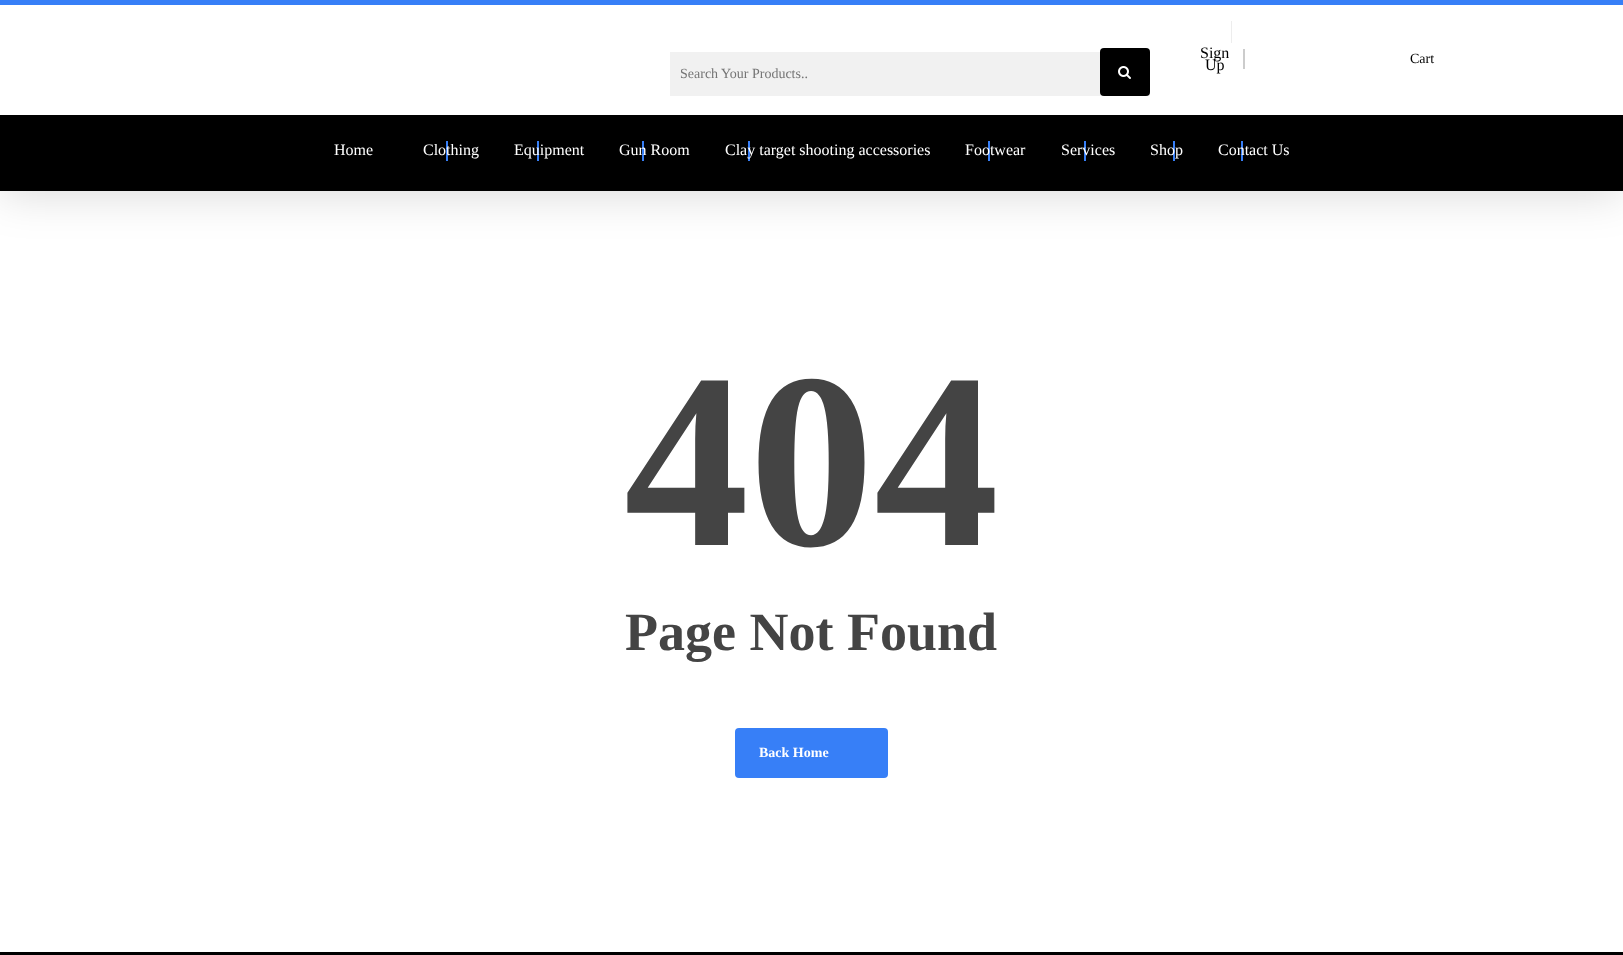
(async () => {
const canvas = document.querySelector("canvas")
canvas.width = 1623
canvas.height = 955
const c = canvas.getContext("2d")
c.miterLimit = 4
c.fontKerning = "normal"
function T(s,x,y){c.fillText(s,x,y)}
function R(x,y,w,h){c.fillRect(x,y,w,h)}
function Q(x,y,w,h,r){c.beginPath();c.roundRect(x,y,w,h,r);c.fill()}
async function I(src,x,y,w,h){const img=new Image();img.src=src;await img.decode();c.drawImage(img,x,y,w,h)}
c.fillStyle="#fff"
R(0,0,1623,955)
c.fillStyle="#00000026"
c.filter="blur(22.5px)"
c.beginPath()
c.rect(0,3,1623,191)
c.fill()
c.filter="none"
c.fillStyle="#000"
R(0,115,1623,76)
c.fillStyle="#fff"
R(0,5,1623,110)
c.fillStyle="#377ff7"
R(0,0,1623,5)
c.fillStyle="#f1f1f1"
R(670,52,480,44)
c.font="14px Liberation Serif"
c.fillStyle="#757575"
T("Search Your Products..",680,78)
c.fillStyle="#000"
Q(1100,48,50,48,4)
await I("1.png",1118,66,13,13)
c.font="16px Liberation Serif"
T("Sign",1200,58)
T("Up",1205,70)
c.fillStyle="#ccc"
R(1243,49,2,20)
c.fillStyle="#ededed"
R(1231,21,1,22)
c.font="14px Liberation Serif"
c.fillStyle="#000"
T("Cart",1410,63)
c.font="16px Liberation Serif"
c.fillStyle="#fff"
T("Home",334,155)
c.fillStyle="#377ff7"
R(446,141,2,20)
c.fillStyle="#fff"
T("Clothing",423,155)
c.fillStyle="#377ff7"
R(537,141,2,20)
c.fillStyle="#fff"
T("Equipment",514,155)
c.fillStyle="#377ff7"
R(642,141,2,20)
c.fillStyle="#fff"
T("Gun Room",619,155)
c.fillStyle="#377ff7"
R(748,141,2,20)
c.fillStyle="#fff"
T("Clay target shooting accessories",725,155)
c.fillStyle="#377ff7"
R(988,141,2,20)
c.fillStyle="#fff"
T("Footwear",965,155)
c.fillStyle="#377ff7"
R(1084,141,2,20)
c.fillStyle="#fff"
T("Services",1061,155)
c.fillStyle="#377ff7"
R(1173,141,2,20)
c.fillStyle="#fff"
T("Shop",1150,155)
c.fillStyle="#377ff7"
R(1241,141,2,20)
c.fillStyle="#fff"
T("Contact Us",1218,155)
c.font="bold 250px Liberation Serif"
c.fillStyle="#444"
T("404",624,545)
c.font="bold 54px Liberation Serif"
T("Page Not Found",625,650)
c.fillStyle="#377ff7"
Q(735,728,153,50,4)
c.font="bold 14px Liberation Serif"
c.fillStyle="#fff"
T("Back Home",759,757)
c.fillStyle="#000"
R(0,952,1623,3)
})()
